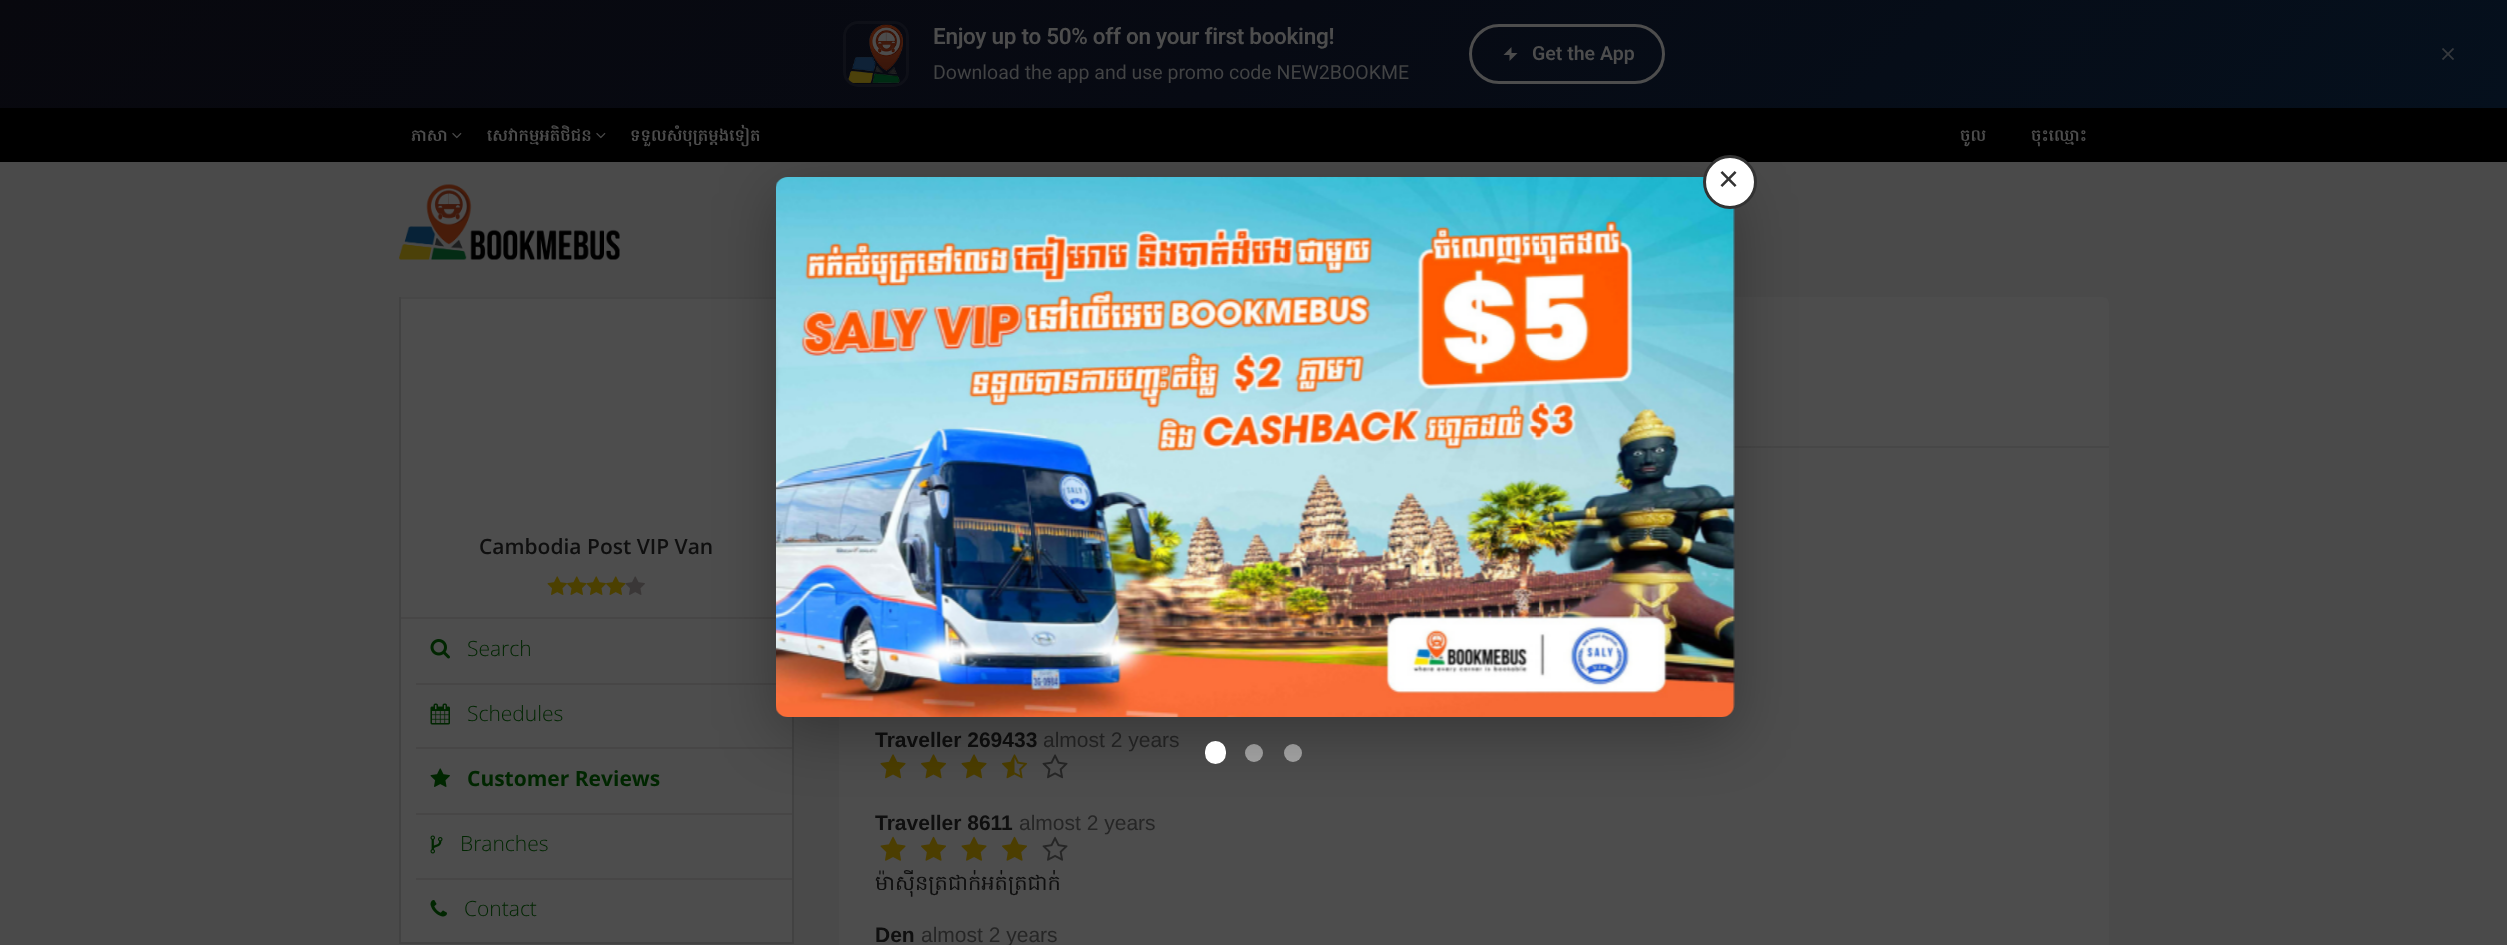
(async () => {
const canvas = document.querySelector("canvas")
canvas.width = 2507
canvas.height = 945
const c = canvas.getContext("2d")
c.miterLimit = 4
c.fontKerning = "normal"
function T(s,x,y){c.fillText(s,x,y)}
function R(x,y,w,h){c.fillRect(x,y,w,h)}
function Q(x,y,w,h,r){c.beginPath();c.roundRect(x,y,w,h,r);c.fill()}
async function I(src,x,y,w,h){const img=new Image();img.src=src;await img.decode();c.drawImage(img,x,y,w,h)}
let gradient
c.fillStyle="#4a4a4a"
R(0,0,2507,945)
c.fillStyle="#000"
R(0,108,2507,54)
await I("4.png",452,132,10,7)
await I("4.png",596,132,10,7)
c.fillStyle="#0000004d"
c.filter="blur(15px)"
c.beginPath()
c.rect(0,6,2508,108)
c.fill()
c.filter="none"
gradient = c.createLinearGradient(600,-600,1908,708)
gradient.addColorStop(0,"#08080e")
gradient.addColorStop(.5,"#070a13")
gradient.addColorStop(1,"#05101d")
c.fillStyle = gradient
R(0,0,2507,108)
c.beginPath()
c.roundRect(844.5,22.5,63,63,13.5)
c.strokeStyle="#4d4d4d1a"
c.lineWidth=3
c.stroke()
await I("1.png",848,24,55,59)
c.letterSpacing="-0.3px"
c.font="600 22.5px Roboto"
c.fillStyle="#4d4d4d"
T("Enjoy up to 50% off on your first booking!",933,44)
c.letterSpacing="0px"
c.font="19.5px Roboto"
c.fillStyle="#424344"
T("Download the app and use promo code NEW2BOOKME",933,79)
c.beginPath()
c.roundRect(1470.5,25.5,193,57,28.5)
c.strokeStyle="#4d4d4d"
c.stroke()
await I("2.png",1503,47,15,14)
c.font="600 19.5px Roboto"
c.fillStyle="#4d4d4d"
T("Get the App",1532,60)
await I("3.png",2442,48,12,12)
c.font="600 16.5px Hanuman"
T("ភាសា",411,141)
T("សេវាកម្មអតិថិជន",487,141)
T("ទទួលសំបុត្រម្ដងទៀត",630,141)
T("ចូល",1960,141)
T("ចុះឈ្មោះ",2031,141)
await I("5.png",399,184,221,76)
R(401,299,391,643)
c.fillStyle="#474747"
R(399,297,377,2)
c.fillStyle="#424242"
R(792,717,2,227)
R(399,942,395,2)
R(399,297,2,647)
c.fillStyle="#474646"
R(401,617,375,2)
c.font="600 21px Open Sans"
c.fillStyle="#0f0f0f"
T("Cambodia Post VIP Van",479,554)
await I("6.png",547,576,20,19)
await I("7.png",567,576,20,19)
await I("8.png",586,576,20,19)
await I("7.png",606,576,20,19)
await I("9.png",625,576,20,19)
c.fillStyle="#474646"
R(416,683,360,2)
await I("10.png",430,639,20,20)
c.font="300 21px Open Sans"
c.fillStyle="#002600"
T("Search",467,656)
c.fillStyle="#474646"
R(416,747,376,2)
await I("11.png",430,703,20,22)
c.fillStyle="#002600"
T("Schedules",467,721)
c.fillStyle="#474646"
R(416,813,376,2)
await I("12.png",430,768,20,19)
c.font="bold 21px Open Sans"
c.fillStyle="#002600"
T("Customer Reviews",467,786)
c.fillStyle="#474646"
R(416,878,376,2)
await I("13.png",430,835,13,19)
c.font="300 21px Open Sans"
c.fillStyle="#002600"
T("Branches",460,851)
await I("14.png",430,900,17,17)
T("Contact",464,916)
c.fillStyle="#4d4d4d"
Q(839,297,1270,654,6)
c.fillStyle="#474747"
R(1733,446,376,2)
c.font="bold 21px Liberation Sans"
c.fillStyle="#0f0f0f"
T("Traveller 269433",875,747)
c.font="21px Liberation Sans"
c.fillStyle="#262626"
T("almost 2 years",1043,747)
await I("15.png",880,754,26,25)
await I("16.png",921,754,25,25)
await I("15.png",961,754,26,25)
await I("17.png",1002,754,25,25)
await I("18.png",1042,754,26,25)
c.font="bold 21px Liberation Sans"
c.fillStyle="#0f0f0f"
T("Traveller 8611",875,830)
c.font="21px Liberation Sans"
c.fillStyle="#262626"
T("almost 2 years",1019,830)
await I("19.png",880,836,26,25)
await I("20.png",921,836,25,25)
await I("19.png",961,836,26,25)
await I("20.png",1002,836,25,25)
await I("21.png",1042,836,26,25)
c.font="21px Hanuman"
c.fillStyle="#0f0f0f"
T("ម៉ាសីុនត្រជាក់អត់ត្រជាក់",875,890)
c.font="bold 21px Liberation Sans"
T("Den",875,942)
c.font="21px Liberation Sans"
c.fillStyle="#262626"
T("almost 2 years",921,942)
c.fillStyle="#a6a6a6"
c.beginPath()
c.arc(1254,753,9,0,7)
c.fill()
c.beginPath()
c.arc(1293,753,9,0,7)
c.fill()
c.fillStyle="#0000004d"
c.filter="blur(30px)"
c.beginPath()
c.roundRect(776,192,958,540,12)
c.fill()
c.filter="none"
await I("22.png",776,177,959,540)
c.fillStyle="#fff"
c.beginPath()
c.arc(1730,182,25.5,0,7)
c.fill()
c.strokeStyle="#333"
c.stroke()
c.font="36px Liberation Sans"
c.fillStyle="#333"
T("×",1718,191)
c.fillStyle="#fff"
Q(1205,741,21,23,10.5)
})()
